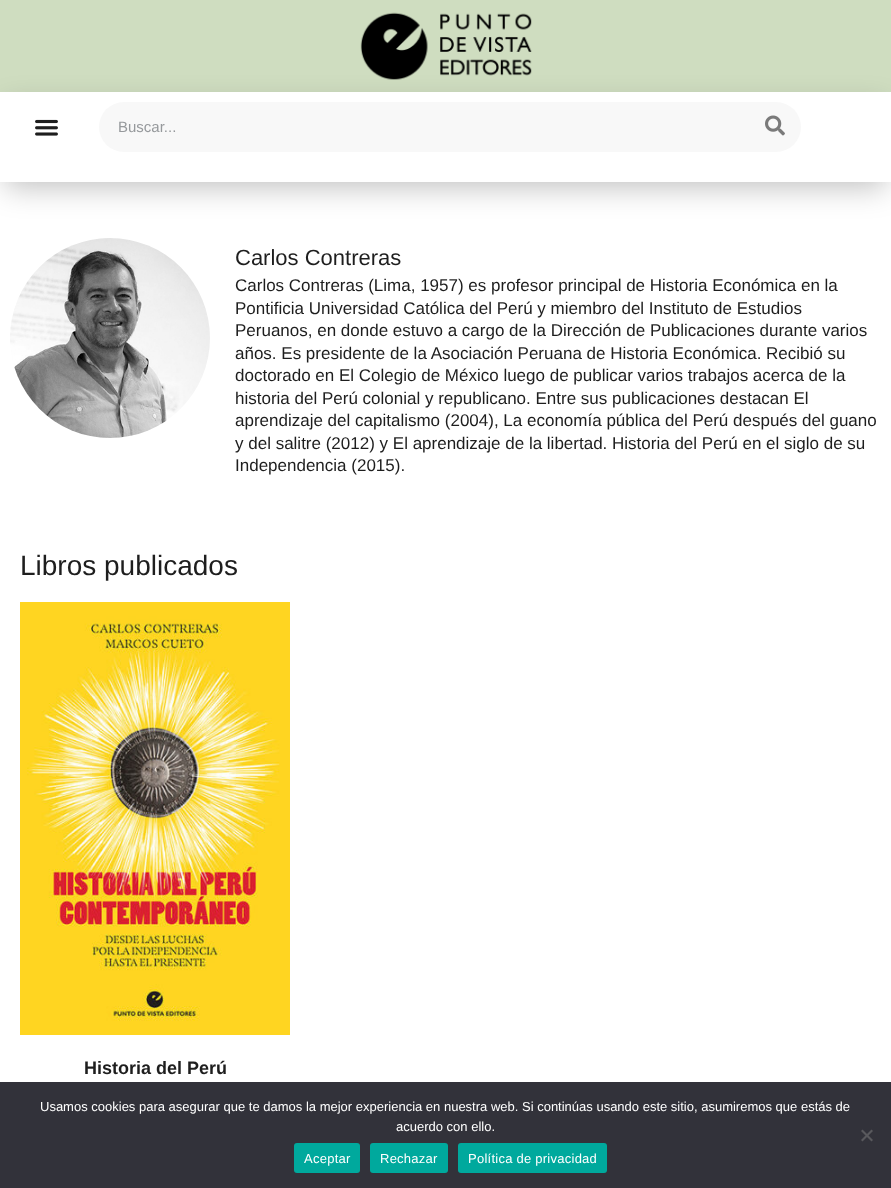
(async () => {
const canvas = document.querySelector("canvas")
canvas.width = 891
canvas.height = 1188
const c = canvas.getContext("2d")
c.miterLimit = 4
c.fontKerning = "normal"
function T(s,x,y){c.fillText(s,x,y)}
function R(x,y,w,h){c.fillRect(x,y,w,h)}
function Q(x,y,w,h,r){c.beginPath();c.roundRect(x,y,w,h,r);c.fill()}
async function I(src,x,y,w,h){const img=new Image();img.src=src;await img.decode();c.drawImage(img,x,y,w,h)}
let path
c.fillStyle="#fff"
R(0,0,891,1188)
c.fillStyle="#cfddc0"
R(0,0,891,92)
await I("1.png",360,12,172,68)
c.save()
path = new Path2D("M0 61h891v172h-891zm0 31h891v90h-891z")
c.clip(path,"evenodd")
c.fillStyle="#00000040"
c.filter="blur(15px)"
c.beginPath()
c.rect(5,107,881,80)
c.fill()
c.filter="none"
c.restore()
await I("2.png",35,119,23,17)
c.fillStyle="#f8f8f8"
Q(99,102,702,50,25)
c.font="15px Liberation Sans"
c.fillStyle="#96999c"
T("Buscar...",118,132)
await I("3.png",765,115,20,21)
await I("4.png",10,238,200,200)
c.font="22px Liberation Sans"
c.fillStyle="#1e1e1e"
T("Carlos Contreras",235,265)
c.font="17px Liberation Sans"
T("Carlos Contreras (Lima, 1957) es profesor principal de Historia Económica en la",235,291)
T("Pontificia Universidad Católica del Perú y miembro del Instituto de Estudios",235,314)
T("Peruanos, en donde estuvo a cargo de la Dirección de Publicaciones durante varios",235,336)
T("años. Es presidente de la Asociación Peruana de Historia Económica. Recibió su",235,359)
T("doctorado en El Colegio de México luego de publicar varios trabajos acerca de la",235,381)
T("historia del Perú colonial y republicano. Entre sus publicaciones destacan El",235,404)
T("aprendizaje del capitalismo (2004), La economía pública del Perú después del guano",235,426)
T("y del salitre (2012) y El aprendizaje de la libertad. Historia del Perú en el siglo de su",235,449)
T("Independencia (2015).",235,471)
c.font="28px Liberation Sans"
T("Libros publicados",20,575)
await I("5.png",20,602,270,433)
c.font="bold 18px Liberation Sans"
T("Historia del Perú",84,1074)
c.fillStyle="#32323a"
R(0,1082,891,106)
c.font="13px Liberation Sans"
c.fillStyle="#fff"
T("Usamos cookies para asegurar que te damos la mejor experiencia en nuestra web. Si continúas usando este sitio, asumiremos que estás de",40,1111)
T("acuerdo con ello.",396,1131)
c.fillStyle="#59595d"
path = new Path2D("M871.5 1129.5l1.5 1.5l-10.5 10.5l-1.5-1.5z")
c.fill(path)
path = new Path2D("M861 1131l1.5-1.5l10.5 10.5l-1.5 1.5z")
c.fill(path)
c.fillStyle="#00a99d"
Q(294,1143,66,30,3)
c.letterSpacing="0.25px"
c.fillStyle="#fff"
T("Aceptar",304,1163)
c.fillStyle="#00a99d"
Q(370,1143,78,30,3)
c.fillStyle="#fff"
T("Rechazar",380,1163)
c.fillStyle="#00a99d"
Q(458,1143,149,30,3)
c.fillStyle="#fff"
T("Política de privacidad",468,1163)
})()
